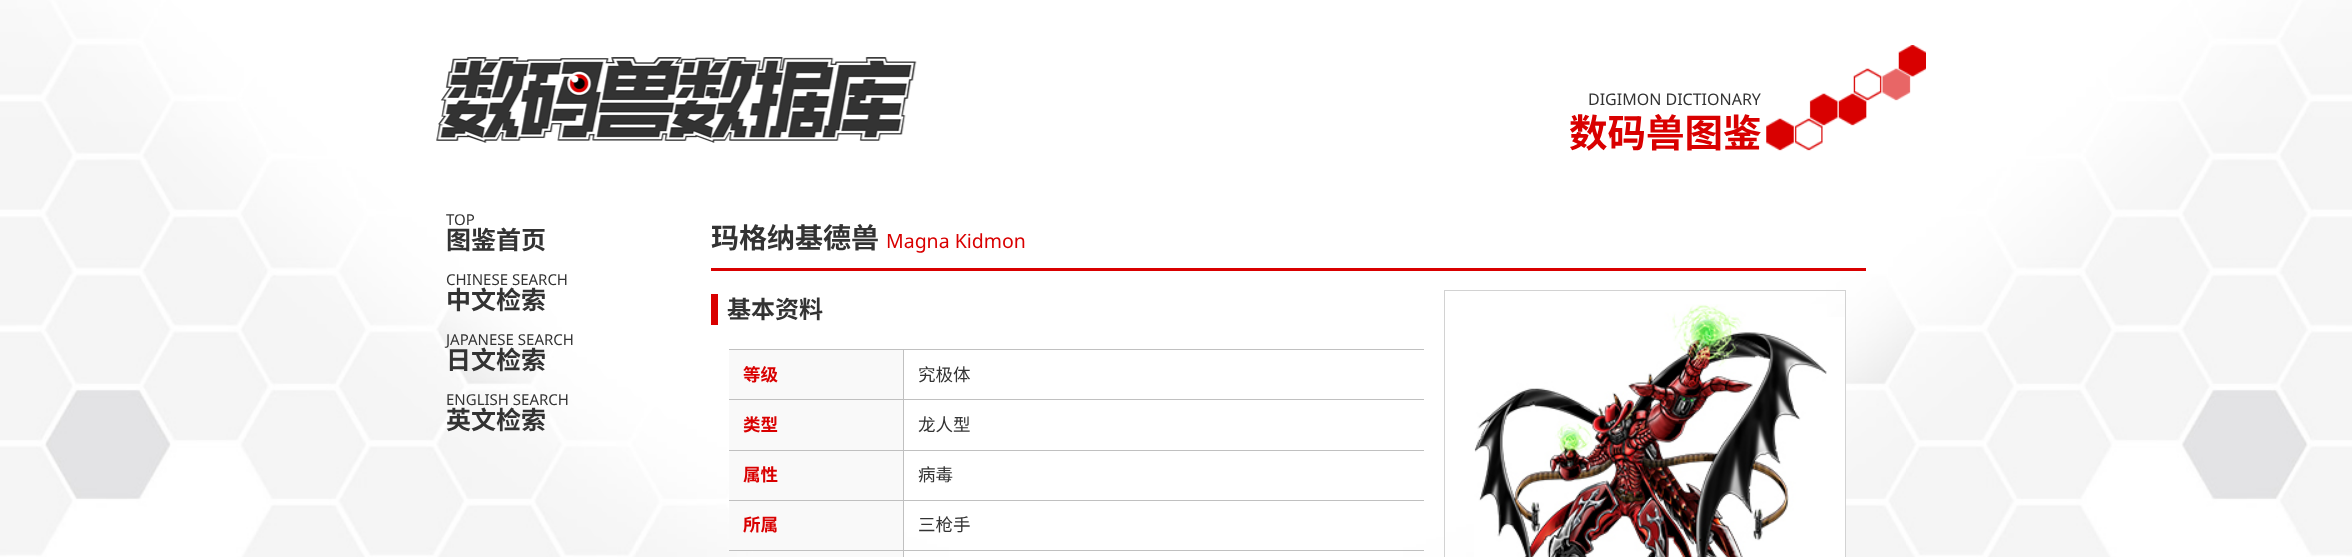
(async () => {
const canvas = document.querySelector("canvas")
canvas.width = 2352
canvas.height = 557
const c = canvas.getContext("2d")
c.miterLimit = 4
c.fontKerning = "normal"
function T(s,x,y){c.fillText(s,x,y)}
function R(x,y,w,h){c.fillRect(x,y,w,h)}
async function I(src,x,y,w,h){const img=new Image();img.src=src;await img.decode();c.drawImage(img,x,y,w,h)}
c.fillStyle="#fff"
R(0,0,2352,557)
await I("1.png",0,0,2352,557)
await I("2.png",436,57,481,86)
c.font="15px Noto Sans"
c.fillStyle="#333"
T("TOP",446,225)
c.font="bold 25px Noto Sans SC"
T("图鉴首页",446,249)
c.font="15px Noto Sans"
T("CHINESE SEARCH",446,285)
c.font="bold 25px Noto Sans SC"
T("中文检索",446,309)
c.font="15px Noto Sans"
T("JAPANESE SEARCH",446,345)
c.font="bold 25px Noto Sans SC"
T("日文检索",446,369)
c.font="15px Noto Sans"
T("ENGLISH SEARCH",446,405)
c.font="bold 25px Noto Sans SC"
T("英文检索",446,429)
await I("3.png",1766,45,160,106)
c.font="16px Noto Sans"
T("DIGIMON DICTIONARY",1588,105)
c.font="bold 38.5px Noto Sans SC"
c.fillStyle="#d90000"
T("数码兽图鉴",1569,147)
R(711,268,1155,3)
c.font="bold 28px Noto Sans SC"
c.fillStyle="#333"
T("玛格纳基德兽",711,248)
c.font="19.5px Noto Sans"
c.fillStyle="#d90000"
T("Magna Kidmon",886,248)
R(711,294,7,31)
c.font="bold 24px Noto Sans SC"
c.fillStyle="#333"
T("基本资料",727,318)
c.fillStyle="#fff"
R(1506,317,339,240)
c.strokeStyle="#d2d2d2"
c.strokeRect(1444.5,290.5,401,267)
await I("4.png",1474,304,353,253)
c.fillStyle="#c0c0c0"
R(729,349,695,1)
R(729,550,695,1)
c.fillStyle="#f9f9f9"
R(753,551,151,6)
c.fillStyle="#c0c0c0"
R(729,399,695,1)
R(729,450,695,1)
R(729,500,695,1)
R(903,350,1,207)
c.fillStyle="#f9f9f9"
R(729,350,174,49)
c.font="bold 17.5px Noto Sans SC"
c.fillStyle="#d90000"
T("等级",743,381)
c.font="17.5px Noto Sans SC"
c.fillStyle="#333"
T("究极体",918,381)
c.fillStyle="#f9f9f9"
R(729,400,174,50)
c.font="bold 17.5px Noto Sans SC"
c.fillStyle="#d90000"
T("类型",743,431)
c.font="17.5px Noto Sans SC"
c.fillStyle="#333"
T("龙人型",918,431)
c.fillStyle="#f9f9f9"
R(729,451,174,49)
c.font="bold 17.5px Noto Sans SC"
c.fillStyle="#d90000"
T("属性",743,481)
c.font="17.5px Noto Sans SC"
c.fillStyle="#333"
T("病毒",918,481)
c.fillStyle="#f9f9f9"
R(729,501,174,49)
c.font="bold 17.5px Noto Sans SC"
c.fillStyle="#d90000"
T("所属",743,531)
c.font="17.5px Noto Sans SC"
c.fillStyle="#333"
T("三枪手",918,531)
})()
